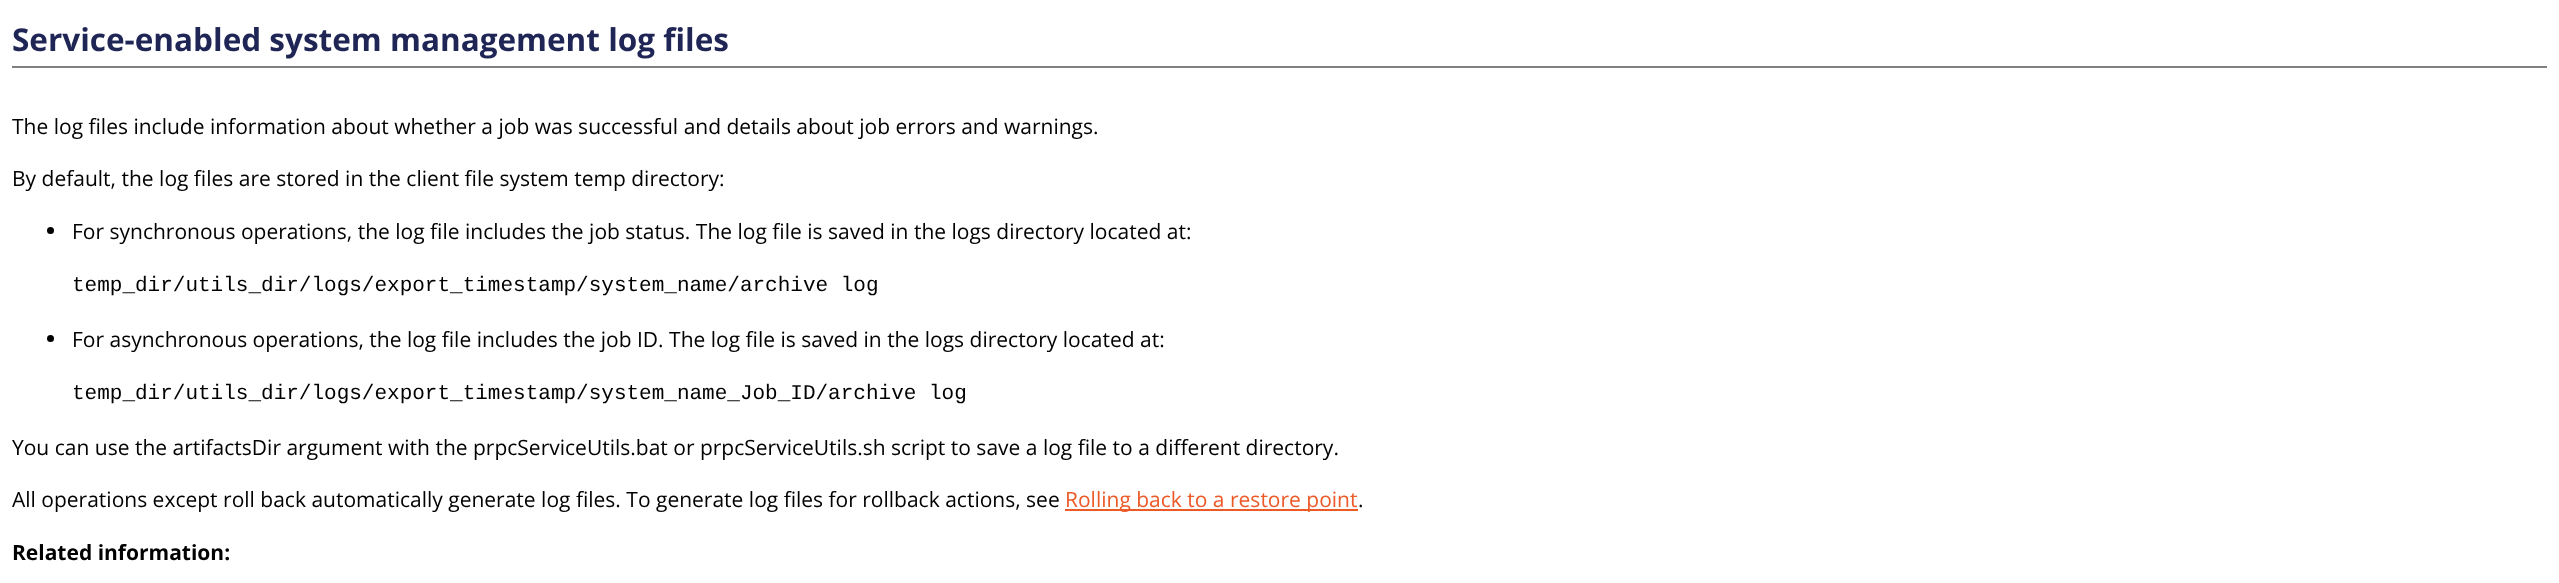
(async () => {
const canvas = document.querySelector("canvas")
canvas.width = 2559
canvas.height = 583
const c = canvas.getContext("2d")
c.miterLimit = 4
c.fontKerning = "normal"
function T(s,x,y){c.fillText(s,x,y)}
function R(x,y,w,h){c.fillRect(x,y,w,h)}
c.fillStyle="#fff"
R(0,0,2559,583)
c.fillStyle="#808080"
R(12,66,2535,2)
c.font="bold 31.5px Open Sans"
c.fillStyle="#1f2555"
T("Service-enabled system management log files",12,51)
c.font="21px Open Sans"
c.fillStyle="#000"
T("The log files include information about whether a job was successful and details about job errors and warnings.",12,134)
T("By default, the log files are stored in the client file system temp directory:",12,186)
c.beginPath()
c.arc(50.5,230.5,3.5,0,7)
c.fill()
T("For synchronous operations, the log file includes the job status. The log file is saved in the logs directory located at:",72,239)
c.font="21px Liberation Mono"
T("temp_dir/utils_dir/logs/export_timestamp/system_name/archive log",72,291)
c.beginPath()
c.arc(50.5,338.5,3.5,0,7)
c.fill()
c.font="21px Open Sans"
T("For asynchronous operations, the log file includes the job ID. The log file is saved in the logs directory located at:",72,347)
c.font="21px Liberation Mono"
T("temp_dir/utils_dir/logs/export_timestamp/system_name_Job_ID/archive log",72,399)
c.font="21px Open Sans"
T("You can use the artifactsDir argument with the prpcServiceUtils.bat or prpcServiceUtils.sh script to save a log file to a different directory.",12,455)
T("All operations except roll back automatically generate log files. To generate log files for rollback actions, see",12,507)
c.fillStyle="#ec5a28"
R(1065,509,293,2)
T("Rolling back to a restore point",1065,507)
c.fillStyle="#000"
T(".",1358,507)
c.font="bold 21px Open Sans"
T("Related information:",12,560)
})()
